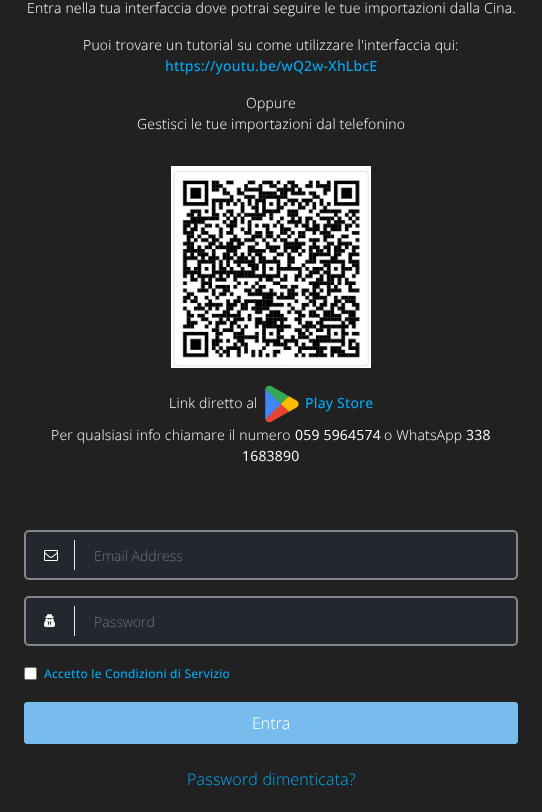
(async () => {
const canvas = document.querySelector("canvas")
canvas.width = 542
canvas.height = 812
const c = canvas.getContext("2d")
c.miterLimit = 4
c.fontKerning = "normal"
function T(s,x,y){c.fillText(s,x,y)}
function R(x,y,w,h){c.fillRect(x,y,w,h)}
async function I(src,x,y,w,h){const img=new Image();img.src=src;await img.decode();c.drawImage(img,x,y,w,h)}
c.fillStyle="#212121"
R(0,0,542,812)
c.letterSpacing="0.2px"
c.font="300 14px Open Sans"
c.fillStyle="#fff"
T("Entra nella tua interfaccia dove potrai seguire le tue importazioni dalla Cina.",27,13)
T("Puoi trovare un tutorial su come utilizzare l'interfaccia qui:",83,50)
c.font="500 14px Open Sans"
c.fillStyle="#03a9f4"
T("https://youtu.be/wQ2w-XhLbcE",165,71)
c.font="300 14px Open Sans"
c.fillStyle="#fff"
T("Oppure",246,108)
T("Gestisci le tue importazioni dal telefonino",137,129)
await I("1.png",171,166,200,202)
T("Link diretto al",169,408)
await I("2.png",265,385,34,38)
c.font="500 14px Open Sans"
c.fillStyle="#03a9f4"
T("Play Store",305,408)
c.font="300 14px Open Sans"
c.fillStyle="#fff"
T("Per qualsiasi info chiamare il numero",51,440)
c.font="14px Open Sans"
T("059 5964574",295,440)
c.font="300 14px Open Sans"
T("o WhatsApp",384,440)
c.font="14px Open Sans"
T("338",466,440)
T("1683890",242,461)
c.fillStyle="#23282e"
c.beginPath()
c.roundRect(25,531,492,48,4)
c.fill()
c.strokeStyle="#83868e"
c.lineWidth=2
c.stroke()
await I("3.png",44,550,14,11)
c.fillStyle="#e1e8ee"
R(74,540,1,30)
c.letterSpacing="0px"
c.font="300 14px Open Sans"
c.fillStyle="#6c757d"
T("Email Address",94,561)
c.fillStyle="#23282e"
c.beginPath()
c.roundRect(25,597,492,48,4)
c.fill()
c.stroke()
await I("4.png",44,614,11,13)
c.fillStyle="#e1e8ee"
R(74,606,1,30)
c.fillStyle="#6c757d"
T("Password",94,627)
c.fillStyle="#fff"
c.beginPath()
c.roundRect(24.5,667.5,12,12,1.5)
c.fill()
c.strokeStyle="#767676"
c.lineWidth=1
c.stroke()
c.letterSpacing="0.2px"
c.font="500 12px Open Sans"
c.fillStyle="#03a9f4"
T("Accetto le Condizioni di Servizio",44,678)
c.fillStyle="#78bcee"
c.beginPath()
c.roundRect(24.5,702.5,493,41,2.5)
c.fill()
c.strokeStyle="#78bcee"
c.stroke()
c.letterSpacing="0px"
c.font="300 16px Open Sans"
c.fillStyle="#fff"
T("Entra",252,729)
c.letterSpacing="0.2px"
c.fillStyle="#03a9f4"
T("Password dimenticata?",187,785)
})()
